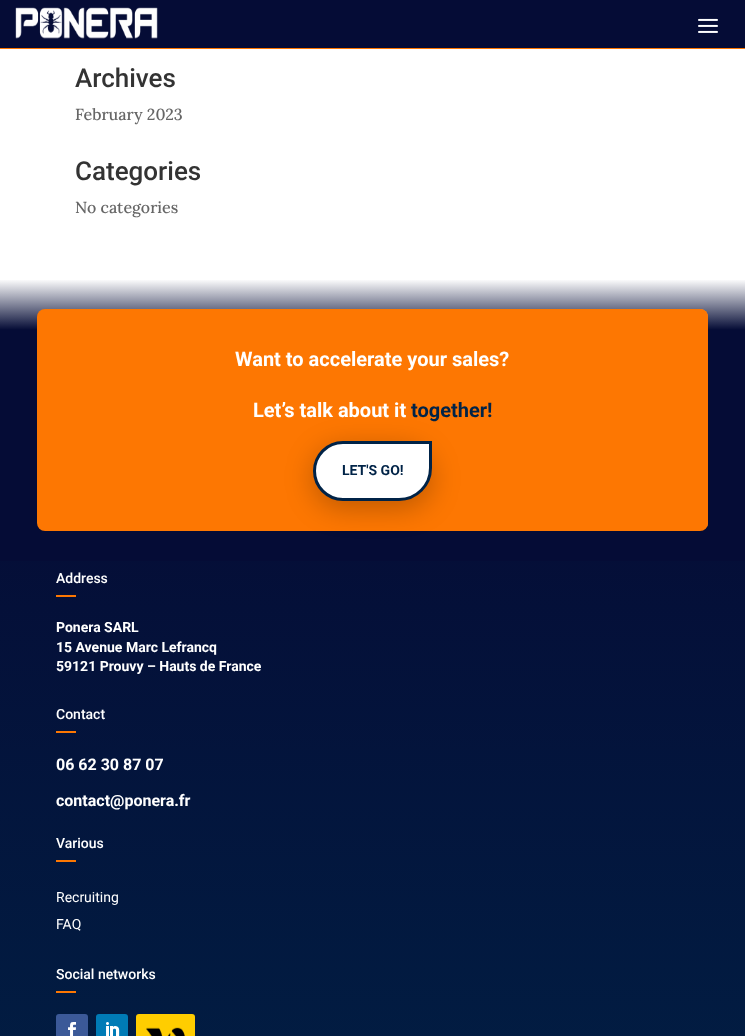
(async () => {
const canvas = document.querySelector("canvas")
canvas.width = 745
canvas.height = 1036
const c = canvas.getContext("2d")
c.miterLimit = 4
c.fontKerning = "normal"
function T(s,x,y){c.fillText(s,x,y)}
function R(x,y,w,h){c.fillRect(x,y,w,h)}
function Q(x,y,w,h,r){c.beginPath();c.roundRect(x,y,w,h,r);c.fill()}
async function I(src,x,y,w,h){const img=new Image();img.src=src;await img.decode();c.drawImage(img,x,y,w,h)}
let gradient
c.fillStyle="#fff"
R(0,0,745,1036)
c.fillStyle="#050c36"
R(0,0,745,48)
c.fillStyle="#fd7702"
R(0,48,745,1)
await I("1.png",15,7,143,32)
await I("2.png",698,18,20,15)
c.font="500 26px Roboto"
c.fillStyle="#333"
T("Archives",75,87)
c.font="500 16px Lora"
c.fillStyle="#666"
T("February 2023",75,120)
c.font="500 26px Roboto"
c.fillStyle="#333"
T("Categories",75,180)
c.font="500 16px Lora"
c.fillStyle="#666"
T("No categories",75,213)
gradient = c.createLinearGradient(373,279,373,561)
gradient.addColorStop(0,"#050c3600")
gradient.addColorStop(.18,"#050c36")
c.fillStyle = gradient
R(0,280,745,281)
await I("3.png",700,309,8,222)
c.fillStyle="#fd7702"
Q(37,309,671,222,8)
c.font="bold 20px Roboto"
c.fillStyle="#fff"
T("Want to accelerate your sales?",235,366)
T("Let’s talk about it",253,417)
c.fillStyle="#002347"
T("together!",411,417)
c.fillStyle="#00000040"
c.filter="blur(14.5px)"
c.beginPath()
c.roundRect(313,448,119,60,33)
c.fill()
c.filter="none"
c.fillStyle="#fff"
c.beginPath()
c.roundRect(314.5,442.5,116,57,[28.5,0,31.5,28.5])
c.fill()
c.strokeStyle="#002347"
c.lineWidth=3
c.stroke()
c.font="bold 14px Roboto"
c.fillStyle="#002347"
T("LET'S GO!",342,475)
gradient = c.createLinearGradient(372,461,373,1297)
gradient.addColorStop(0,"#050c36")
gradient.addColorStop(1,"#002347")
c.fillStyle = gradient
R(0,561,745,475)
c.font="500 14px Roboto"
c.fillStyle="#fff"
T("Address",56,583)
c.fillStyle="#fd7702"
R(56,595,20,2)
c.font="bold 14px Roboto"
c.fillStyle="#fff"
T("Ponera SARL",56,632)
T("15 Avenue Marc Lefrancq",56,652)
T("59121 Prouvy – Hauts de France",56,671)
c.font="500 14px Roboto"
T("Contact",56,719)
c.fillStyle="#fd7702"
R(56,731,20,2)
c.font="bold 16px Roboto"
c.fillStyle="#fff"
T("06 62 30 87 07",56,770)
T("contact@ponera.fr",56,806)
c.font="500 14px Roboto"
T("Various",56,848)
c.fillStyle="#fd7702"
R(56,860,20,2)
c.font="14px Roboto"
c.fillStyle="#fff"
T("Recruiting",56,902)
T("FAQ",56,929)
c.font="500 14px Roboto"
T("Social networks",56,979)
c.fillStyle="#fd7702"
R(56,991,20,2)
c.fillStyle="#3b5998"
Q(56,1014,32,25,3)
await I("4.png",68,1022,8,14)
c.fillStyle="#007bb6"
Q(96,1014,32,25,3)
await I("5.png",106,1022,14,14)
await I("6.png",136,1014,59,22)
})()
